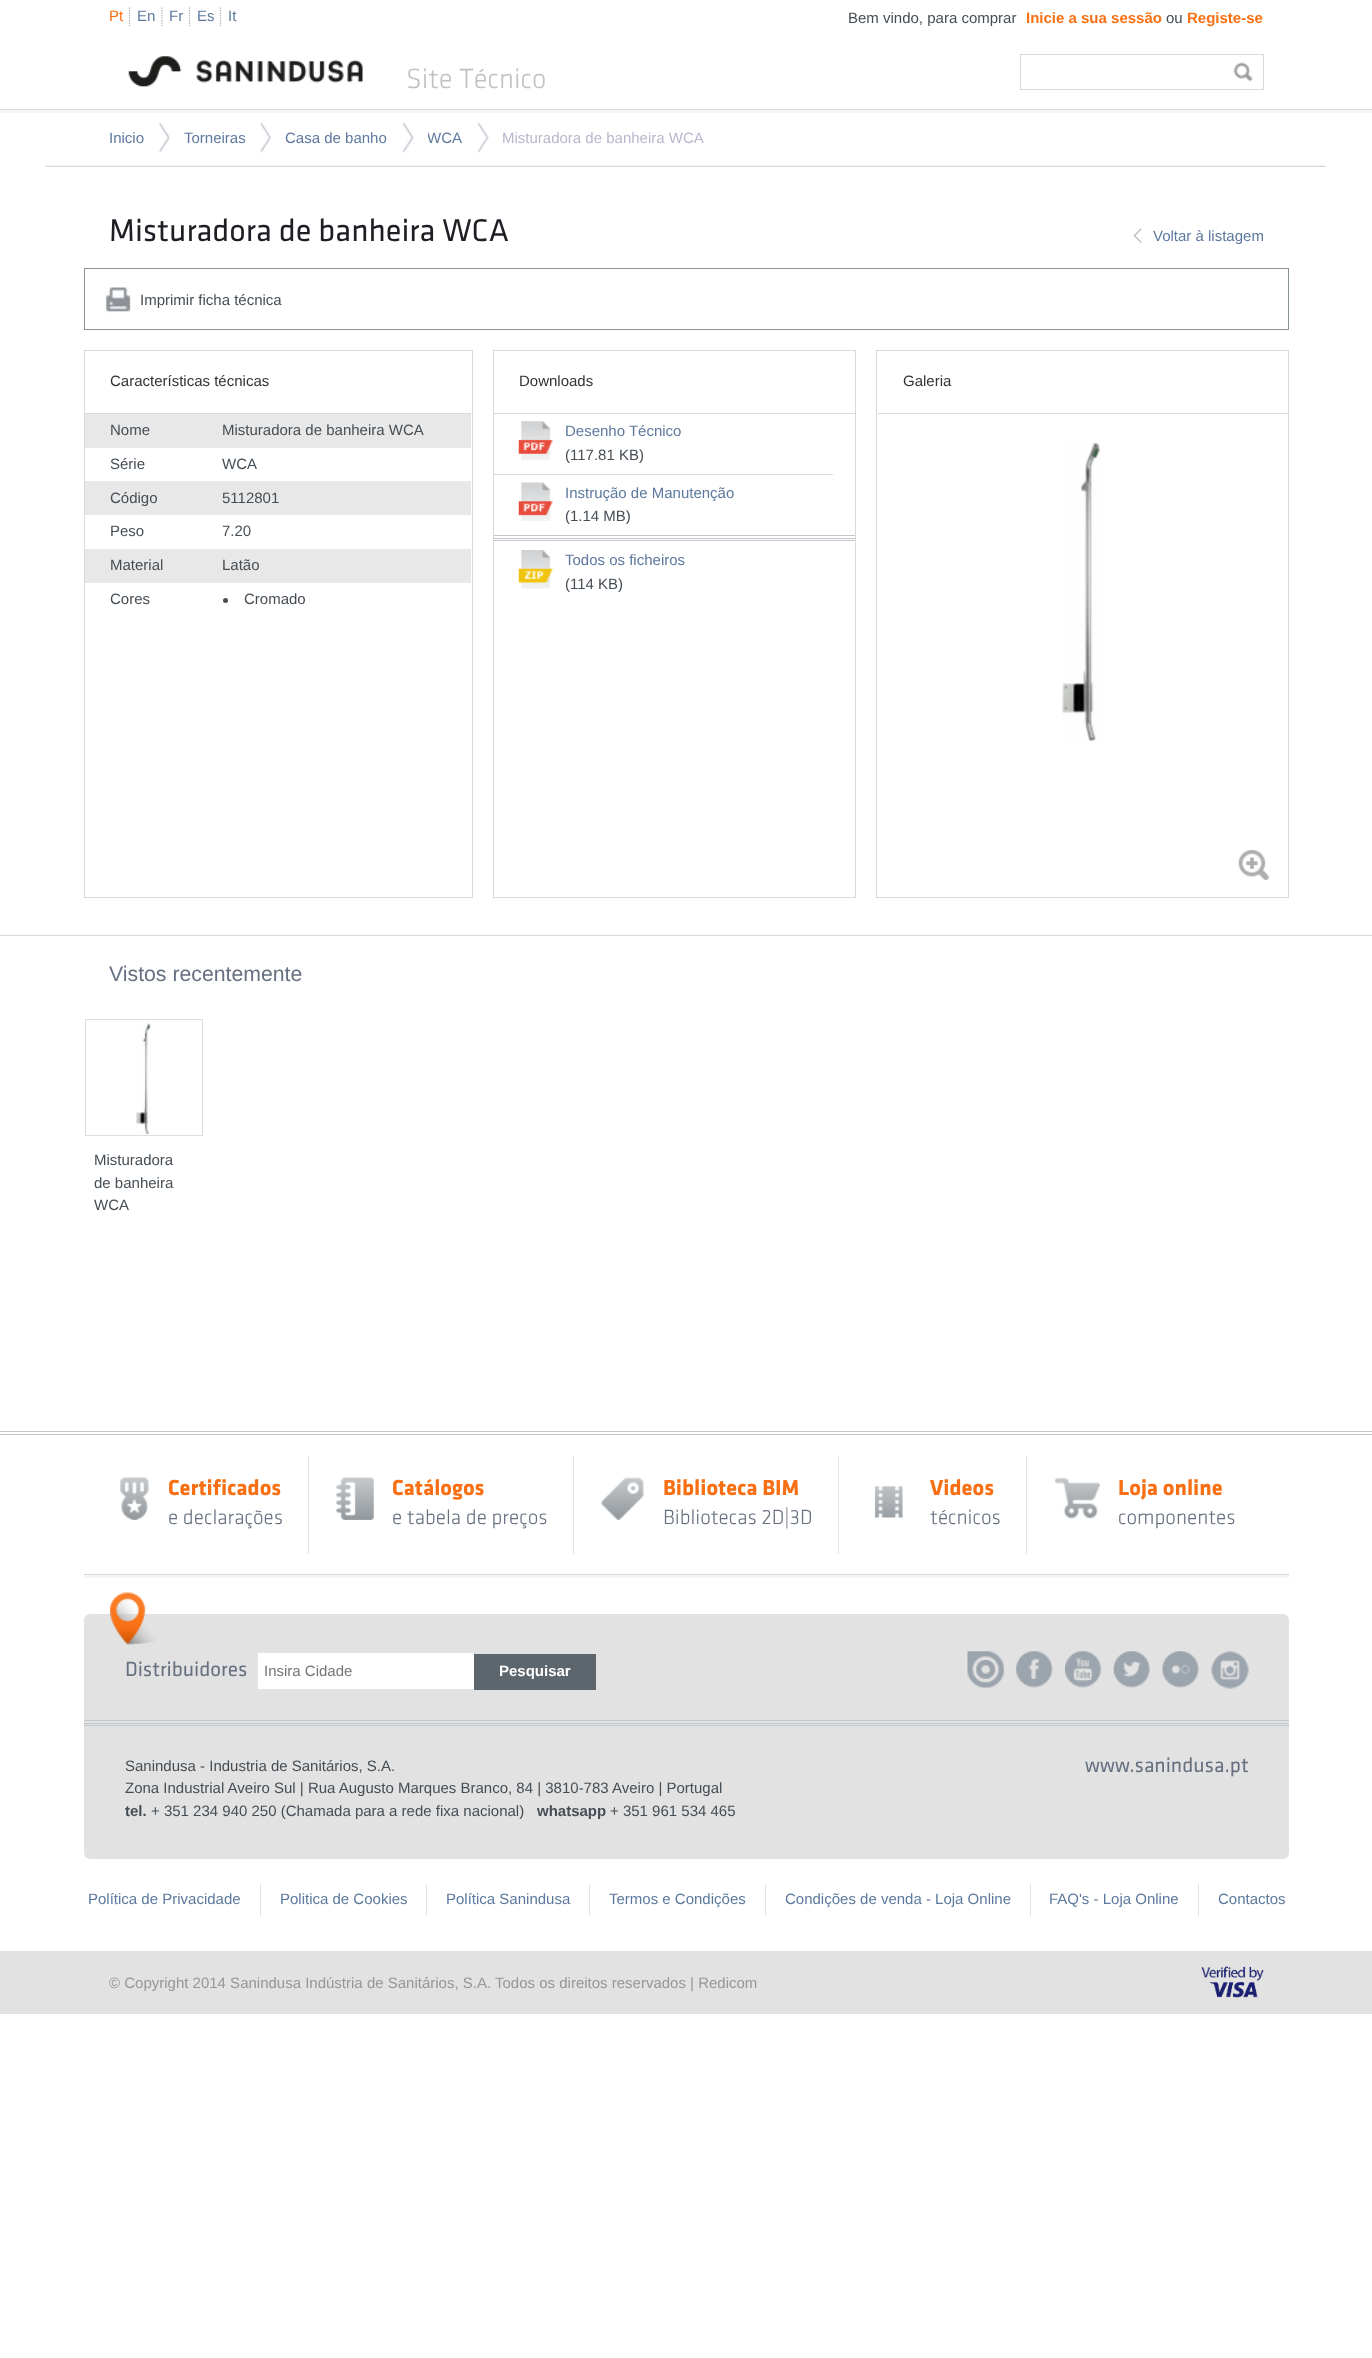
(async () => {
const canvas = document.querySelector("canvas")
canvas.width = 1372
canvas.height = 2358
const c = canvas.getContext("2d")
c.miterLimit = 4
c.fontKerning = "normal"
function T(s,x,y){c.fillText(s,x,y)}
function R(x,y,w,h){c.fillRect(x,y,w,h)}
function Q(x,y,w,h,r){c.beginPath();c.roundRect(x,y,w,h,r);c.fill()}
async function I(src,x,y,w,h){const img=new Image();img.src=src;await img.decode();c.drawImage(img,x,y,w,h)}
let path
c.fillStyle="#fff"
R(0,0,1372,2358)
c.font="15px Liberation Sans"
c.fillStyle="#f87013"
T("Pt",109,21)
path = new Path2D("M129.5 7.5v18.5")
c.strokeStyle="#aaa"
c.lineWidth=1.2
c.setLineDash([1.25,1.25])
c.stroke(path)
c.fillStyle="#5d799d"
T("En",137,21)
path = new Path2D("M162 7.5v18.5")
c.stroke(path)
T("Fr",169,21)
path = new Path2D("M189.5 7.5v18.5")
c.stroke(path)
T("Es",197,21)
path = new Path2D("M220.5 7.5v18.5")
c.stroke(path)
T("It",228,21)
c.fillStyle="#464e55"
T("Bem vindo, para comprar",848,23)
c.font="bold 15px Liberation Sans"
c.fillStyle="#f87013"
T("Inicie a sua sessão",1026,23)
c.font="15px Liberation Sans"
c.fillStyle="#464e55"
T("ou",1166,23)
c.font="bold 15px Liberation Sans"
c.fillStyle="#f87013"
T("Registe-se",1187,23)
await I("1.png",128,56,235,31)
c.font="300 28.75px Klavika"
c.fillStyle="#c1c1c1"
T("Site Técnico",406,88)
c.strokeStyle="#d9d9d9"
c.lineWidth=1
c.setLineDash([])
c.strokeRect(1020.5,54.5,243,35)
await I("2.png",1233,62,20,20)
c.fillStyle="#f5f5f5"
R(0,110,1372,3)
c.fillStyle="#d9d9d9"
R(0,109,1372,1)
R(46,166,1280,1)
c.fillStyle="#f2f2f2"
R(46,165,1280,1)
c.font="15px Liberation Sans"
c.fillStyle="#5d799d"
T("Inicio",109,143)
await I("3.png",158,122,12,31)
T("Torneiras",184,143)
await I("4.png",260,122,12,31)
T("Casa de banho",285,143)
await I("5.png",402,122,12,31)
c.save()
c.beginPath()
c.rect(428,126,35,23)
c.clip()
T("WCA",427,143)
c.restore()
await I("6.png",477,122,12,31)
c.fillStyle="#b7b8cc"
T("Misturadora de banheira WCA",502,143)
c.font="32.5px Klavika"
c.fillStyle="#1d1f24"
T("Misturadora de banheira WCA",109,241)
await I("7.png",1133,228,9,15)
c.font="15px Liberation Sans"
c.fillStyle="#5d799d"
T("Voltar à listagem",1153,241)
c.strokeStyle="#879198"
c.strokeRect(84.5,268.5,1204,61)
await I("8.png",104,287,27,26)
c.fillStyle="#464e55"
T("Imprimir ficha técnica",140,305)
c.strokeStyle="#d9d9d9"
c.strokeRect(84.5,350.5,388,547)
c.fillStyle="#d9d9d9"
R(85,413,386,1)
c.fillStyle="#333"
T("Características técnicas",110,386)
c.fillStyle="#e8e8e8"
R(85,414,386,34)
c.fillStyle="#464e55"
T("Nome",110,435)
T("Misturadora de banheira WCA",222,435)
T("Série",110,469)
T("WCA",222,469)
c.fillStyle="#e8e8e8"
R(85,481,386,34)
c.fillStyle="#464e55"
T("Código",110,503)
T("5112801",222,503)
T("Peso",110,536)
T("7.20",222,536)
c.fillStyle="#e8e8e8"
R(85,549,386,34)
c.fillStyle="#464e55"
T("Material",110,570)
T("Latão",222,570)
T("Cores",110,604)
c.fillStyle="#474f56"
c.beginPath()
c.arc(225.5,600.5,2.5,0,7)
c.fill()
c.fillStyle="#464e55"
T("Cromado",244,604)
c.strokeRect(493.5,350.5,362,547)
c.fillStyle="#d9d9d9"
R(494,413,361,1)
c.fillStyle="#333"
T("Downloads",519,386)
await I("9.png",518,421,35,39)
c.fillStyle="#5d799d"
T("Desenho Técnico",565,436)
c.fillStyle="#464e55"
T("(117.81 KB)",565,460)
c.fillStyle="#d9d9d9"
R(494,474,339,1)
await I("10.png",518,482,35,39)
c.fillStyle="#5d799d"
T("Instrução de Manutenção",565,498)
c.fillStyle="#464e55"
T("(1.14 MB)",565,521)
c.fillStyle="#c2c7cd"
R(494,535,361,1)
R(494,538,361,1)
R(494,540,361,1)
await I("11.png",518,550,35,39)
c.fillStyle="#5d799d"
T("Todos os ficheiros",565,565)
c.fillStyle="#464e55"
T("(114 KB)",565,589)
c.strokeRect(876.5,350.5,412,547)
c.fillStyle="#d9d9d9"
R(878,413,410,1)
c.fillStyle="#333"
T("Galeria",903,386)
await I("12.png",1062,442,39,300)
await I("13.png",1238,850,31,30)
c.fillStyle="#d9d9d9"
R(0,935,1372,1)
c.font="21.25px Liberation Sans"
c.fillStyle="#667080"
T("Vistos recentemente",109,981)
c.strokeStyle="#dedede"
c.strokeRect(85.5,1019.5,117,116)
await I("14.png",136,1023,15,111)
c.font="15px Liberation Sans"
c.fillStyle="#464e55"
T("Misturadora",94,1165)
T("de banheira",94,1188)
T("WCA",94,1210)
c.fillStyle="#c2c7cd"
R(0,1431,1372,1)
R(0,1434,1372,1)
await I("15.png",120,1477,29,43)
c.font="bold 22.5px Klavika"
c.fillStyle="#f87013"
T("Certificados",168,1495)
c.font="300 21.25px Klavika"
c.fillStyle="#667080"
T("e declarações",168,1524)
c.fillStyle="#e4e4e4"
R(308,1456,1,98)
await I("16.png",336,1477,38,43)
c.font="bold 22.5px Klavika"
c.fillStyle="#f87013"
T("Catálogos",392,1495)
c.font="300 21.25px Klavika"
c.fillStyle="#667080"
T("e tabela de preços",392,1524)
c.fillStyle="#e4e4e4"
R(573,1456,1,98)
await I("17.png",601,1477,43,43)
c.font="bold 22.5px Klavika"
c.fillStyle="#f87013"
T("Biblioteca BIM",663,1495)
c.font="300 21.25px Klavika"
c.fillStyle="#667080"
T("Bibliotecas 2D|3D",663,1524)
c.fillStyle="#e4e4e4"
R(838,1456,1,98)
await I("18.png",874,1486,29,32)
c.font="bold 22.5px Klavika"
c.fillStyle="#f87013"
T("Videos",930,1495)
c.font="300 21.25px Klavika"
c.fillStyle="#667080"
T("técnicos",930,1524)
c.fillStyle="#e4e4e4"
R(1026,1456,1,98)
await I("19.png",1055,1477,45,42)
c.font="bold 22.5px Klavika"
c.fillStyle="#f87013"
T("Loja online",1118,1495)
c.font="300 21.25px Klavika"
c.fillStyle="#667080"
T("componentes",1118,1524)
c.fillStyle="#f5f5f5"
R(84,1575,1205,3)
c.fillStyle="#d9d9d9"
R(84,1574,1205,1)
c.fillStyle="#e2e2e2"
Q(84,1614,1205,245,6)
await I("20.png",110,1592,46,53)
c.font="21.25px Klavika"
c.fillStyle="#667080"
T("Distribuidores",125,1676)
c.fillStyle="#fff"
R(258,1653,216,36)
c.font="15px Liberation Sans"
c.fillStyle="#757575"
T("Insira Cidade",264,1676)
c.fillStyle="#5d666d"
R(474,1654,122,36)
c.font="bold 15px Liberation Sans"
c.fillStyle="#fff"
T("Pesquisar",499,1676)
await I("21.png",967,1651,37,37)
await I("22.png",1016,1651,37,37)
await I("23.png",1065,1651,37,37)
await I("24.png",1113,1651,37,37)
await I("25.png",1162,1651,37,37)
await I("26.png",1211,1651,38,38)
c.fillStyle="#c2c7cd"
R(84,1720,1205,1)
R(84,1723,1205,1)
R(84,1725,1205,1)
c.font="15px Liberation Sans"
c.fillStyle="#464e55"
T("Sanindusa - Industria de Sanitários, S.A.",125,1771)
T("Zona Industrial Aveiro Sul | Rua Augusto Marques Branco, 84 | 3810-783 Aveiro | Portugal",125,1793)
c.font="bold 15px Liberation Sans"
T("tel.",125,1816)
c.font="15px Liberation Sans"
T("+ 351 234 940 250 (Chamada para a rede fixa nacional)",151,1816)
c.font="bold 15px Liberation Sans"
T("whatsapp",537,1816)
c.font="15px Liberation Sans"
T("+ 351 961 534 465",610,1816)
c.font="21.25px Klavika"
c.fillStyle="#667080"
T("www.sanindusa.pt",1085,1772)
c.font="15px Liberation Sans"
c.fillStyle="#5d799d"
T("Política de Privacidade",88,1904)
c.fillStyle="#dee1e6"
R(260,1884,1,32)
c.fillStyle="#5d799d"
T("Politica de Cookies",280,1904)
c.fillStyle="#dee1e6"
R(426,1884,1,32)
c.fillStyle="#5d799d"
T("Política Sanindusa",446,1904)
c.fillStyle="#dee1e6"
R(589,1884,1,32)
c.fillStyle="#5d799d"
T("Termos e Condições",609,1904)
c.fillStyle="#dee1e6"
R(765,1884,1,32)
c.fillStyle="#5d799d"
T("Condições de venda - Loja Online",785,1904)
c.fillStyle="#dee1e6"
R(1030,1884,1,32)
c.fillStyle="#5d799d"
T("FAQ's - Loja Online",1049,1904)
c.fillStyle="#dee1e6"
R(1198,1884,1,32)
c.fillStyle="#5d799d"
T("Contactos",1218,1904)
c.fillStyle="#e2e2e2"
R(0,1951,1372,63)
c.fillStyle="#96969b"
T("© Copyright 2014 Sanindusa Indústria de Sanitários, S.A. Todos os direitos reservados | Redicom",109,1988)
await I("27.png",1201,1966,63,32)
})()
